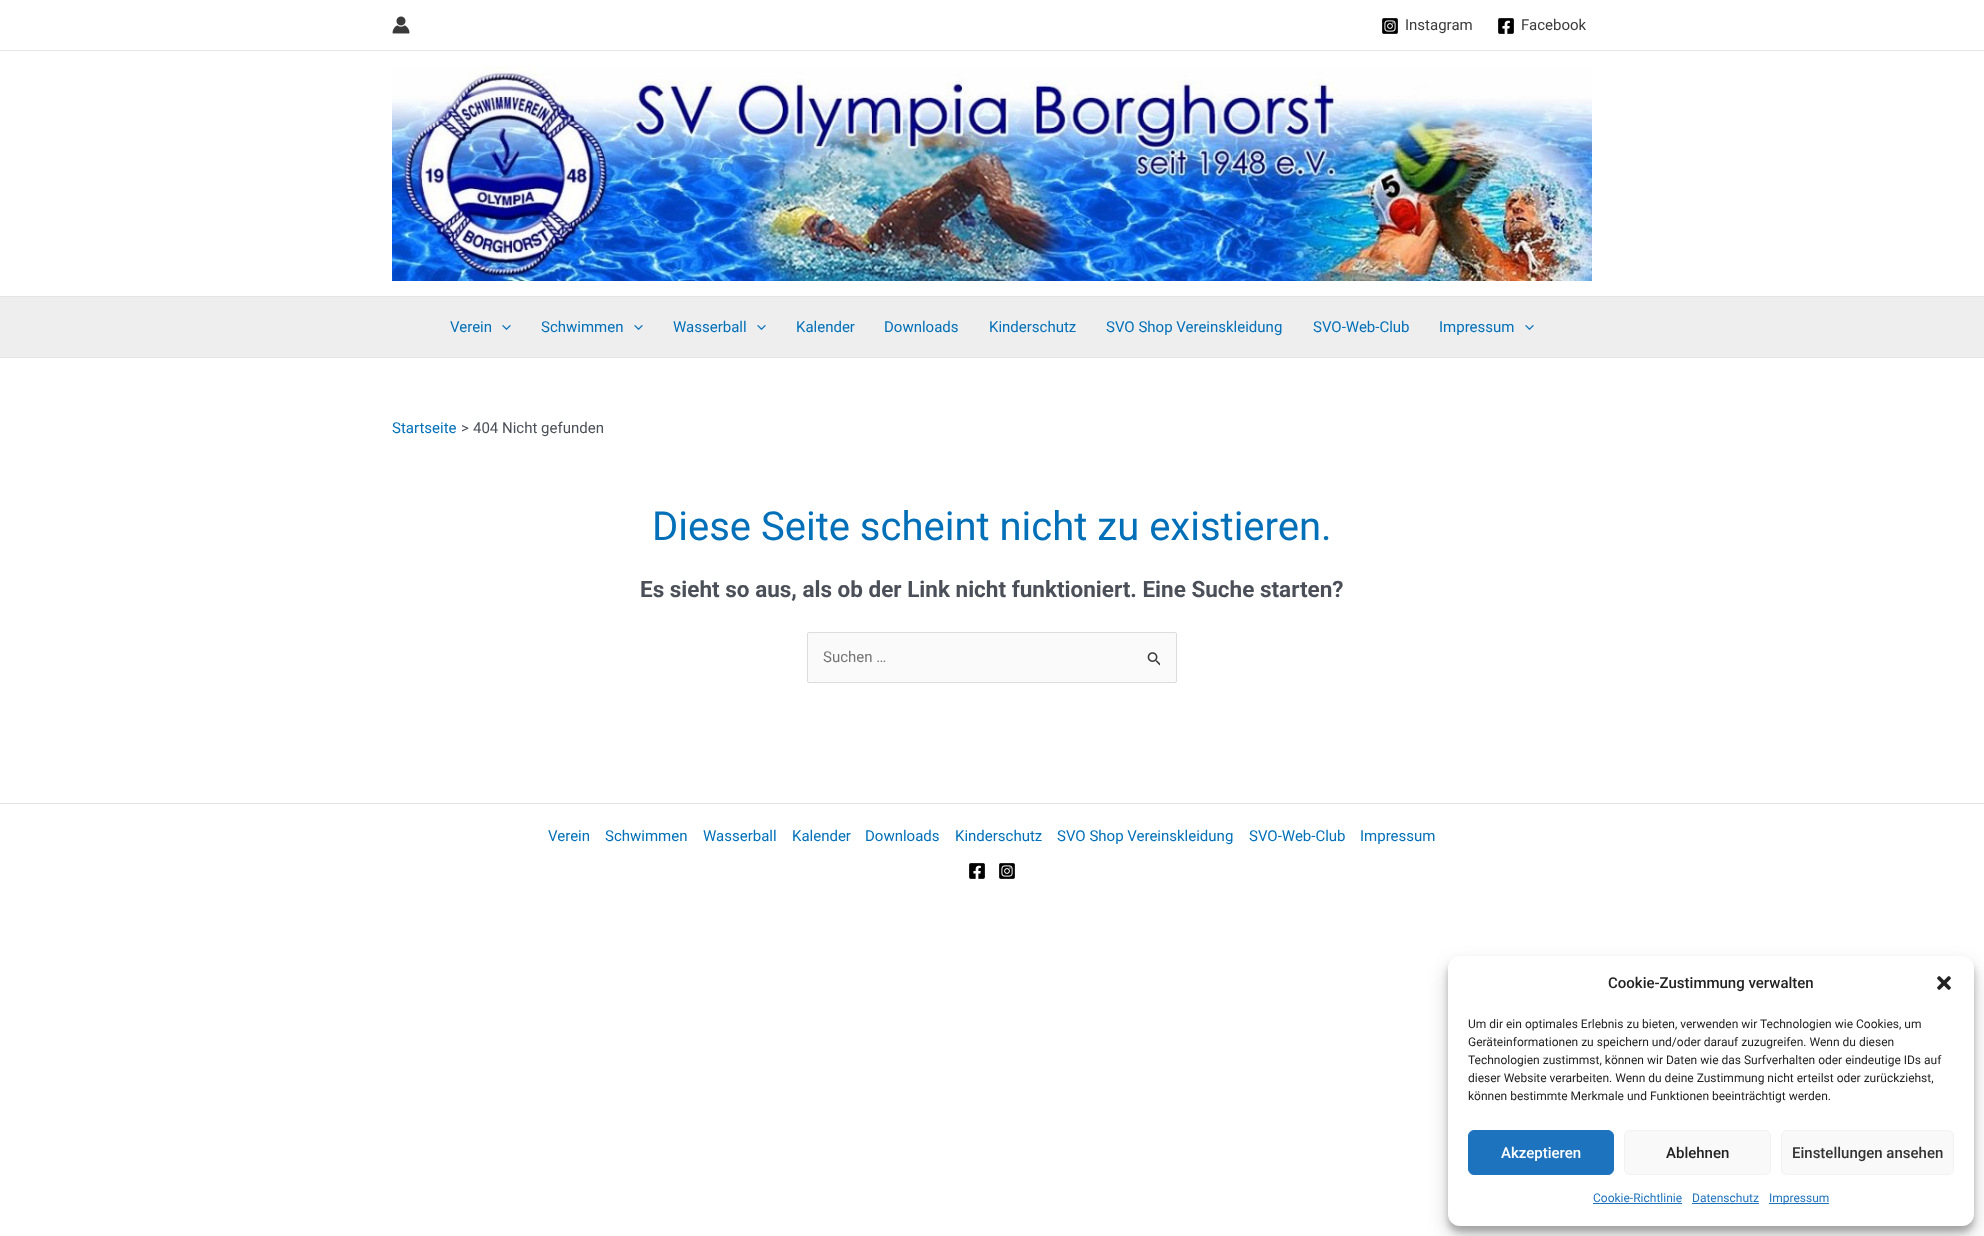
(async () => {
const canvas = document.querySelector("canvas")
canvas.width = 1984
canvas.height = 1236
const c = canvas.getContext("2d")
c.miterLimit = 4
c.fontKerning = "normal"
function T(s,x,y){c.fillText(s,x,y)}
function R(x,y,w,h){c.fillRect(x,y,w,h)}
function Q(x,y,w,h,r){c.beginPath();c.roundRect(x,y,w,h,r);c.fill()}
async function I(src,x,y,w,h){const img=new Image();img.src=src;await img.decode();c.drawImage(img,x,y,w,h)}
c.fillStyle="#fff"
R(0,0,1984,1236)
c.fillStyle="#e5e5e5"
R(0,50,1984,1)
await I("1.png",392,16,18,18)
await I("2.png",1382,18,16,16)
c.font="15px Roboto"
c.fillStyle="#3a3a3a"
T("Instagram",1405,30)
await I("3.png",1498,18,16,16)
T("Facebook",1521,30)
c.fillStyle="#e5e5e5"
R(0,296,1984,1)
await I("4.png",392,66,1200,215)
c.fillStyle="#eee"
R(0,297,1984,60)
c.fillStyle="#e5e5e5"
R(0,357,1984,1)
c.fillStyle="#0170b9"
T("Verein",450,332)
await I("5.png",502,325,9,5)
T("Schwimmen",541,332)
await I("5.png",634,325,9,5)
T("Wasserball",673,332)
await I("5.png",757,325,9,5)
T("Kalender",796,332)
T("Downloads",884,332)
T("Kinderschutz",989,332)
T("SVO Shop Vereinskleidung",1106,332)
T("SVO-Web-Club",1313,332)
T("Impressum",1439,332)
await I("5.png",1525,325,9,5)
T("Startseite",392,433)
c.fillStyle="#4b4f58"
T(">",461,433)
T("404 Nicht gefunden",473,433)
c.font="40px Roboto"
c.fillStyle="#0170b9"
T("Diese Seite scheint nicht zu existieren.",652,540)
c.font="bold 22.5px Roboto"
c.fillStyle="#4b4f58"
T("Es sieht so aus, als ob der Link nicht funktioniert. Eine Suche starten?",640,597)
c.fillStyle="#fafafa"
c.beginPath()
c.roundRect(807.5,632.5,369,50,1.5)
c.fill()
c.strokeStyle="#ddd"
c.stroke()
c.font="15px Roboto"
c.fillStyle="#757575"
T("Suchen …",823,662)
await I("6.png",1147,652,13,14)
c.fillStyle="#e5e5e5"
R(0,803,1984,1)
c.fillStyle="#0170b9"
T("Verein",548,841)
T("Schwimmen",605,841)
T("Wasserball",703,841)
T("Kalender",792,841)
T("Downloads",865,841)
T("Kinderschutz",955,841)
T("SVO Shop Vereinskleidung",1057,841)
T("SVO-Web-Club",1249,841)
T("Impressum",1360,841)
await I("3.png",969,863,16,16)
await I("2.png",999,863,16,16)
c.fillStyle="#0000003b"
c.filter="blur(3px)"
c.beginPath()
c.roundRect(1448,962,526,270,12)
c.fill()
c.filter="none"
c.fillStyle="#00000030"
c.filter="blur(10px)"
c.beginPath()
c.roundRect(1448,966,526,270,12)
c.fill()
c.filter="none"
c.fillStyle="#fff"
Q(1448,956,526,270,12)
c.font="500 15px Roboto"
c.fillStyle="#222"
T("Cookie-Zustimmung verwalten",1608,988)
await I("7.png",1937,976,14,14)
c.font="12px Roboto"
T("Um dir ein optimales Erlebnis zu bieten, verwenden wir Technologien wie Cookies, um",1468,1028)
T("Geräteinformationen zu speichern und/oder darauf zuzugreifen. Wenn du diesen",1468,1046)
T("Technologien zustimmst, können wir Daten wie das Surfverhalten oder eindeutige IDs auf",1468,1064)
T("dieser Website verarbeiten. Wenn du deine Zustimmung nicht erteilst oder zurückziehst,",1468,1082)
T("können bestimmte Merkmale und Funktionen beeinträchtigt werden.",1468,1100)
c.fillStyle="#1e73be"
c.beginPath()
c.roundRect(1468.5,1130.5,145,44,5.5)
c.fill()
c.strokeStyle="#1e73be"
c.stroke()
c.font="500 15px Roboto"
c.fillStyle="#fff"
T("Akzeptieren",1501,1158)
c.fillStyle="#f9f9f9"
c.beginPath()
c.roundRect(1624.5,1130.5,146,44,5.5)
c.fill()
c.strokeStyle="#f2f2f2"
c.stroke()
c.fillStyle="#222"
T("Ablehnen",1666,1158)
c.fillStyle="#f9f9f9"
c.beginPath()
c.roundRect(1781.5,1130.5,172,44,5.5)
c.fill()
c.stroke()
c.fillStyle="#333"
T("Einstellungen ansehen",1792,1158)
c.font="12px Roboto"
c.fillStyle="#1e73be"
T("Cookie-Richtlinie",1593,1202)
R(1593,1203,89,1)
T("Datenschutz",1692,1202)
R(1692,1203,67,1)
R(1769,1203,60,1)
T("Impressum",1769,1202)
})()
